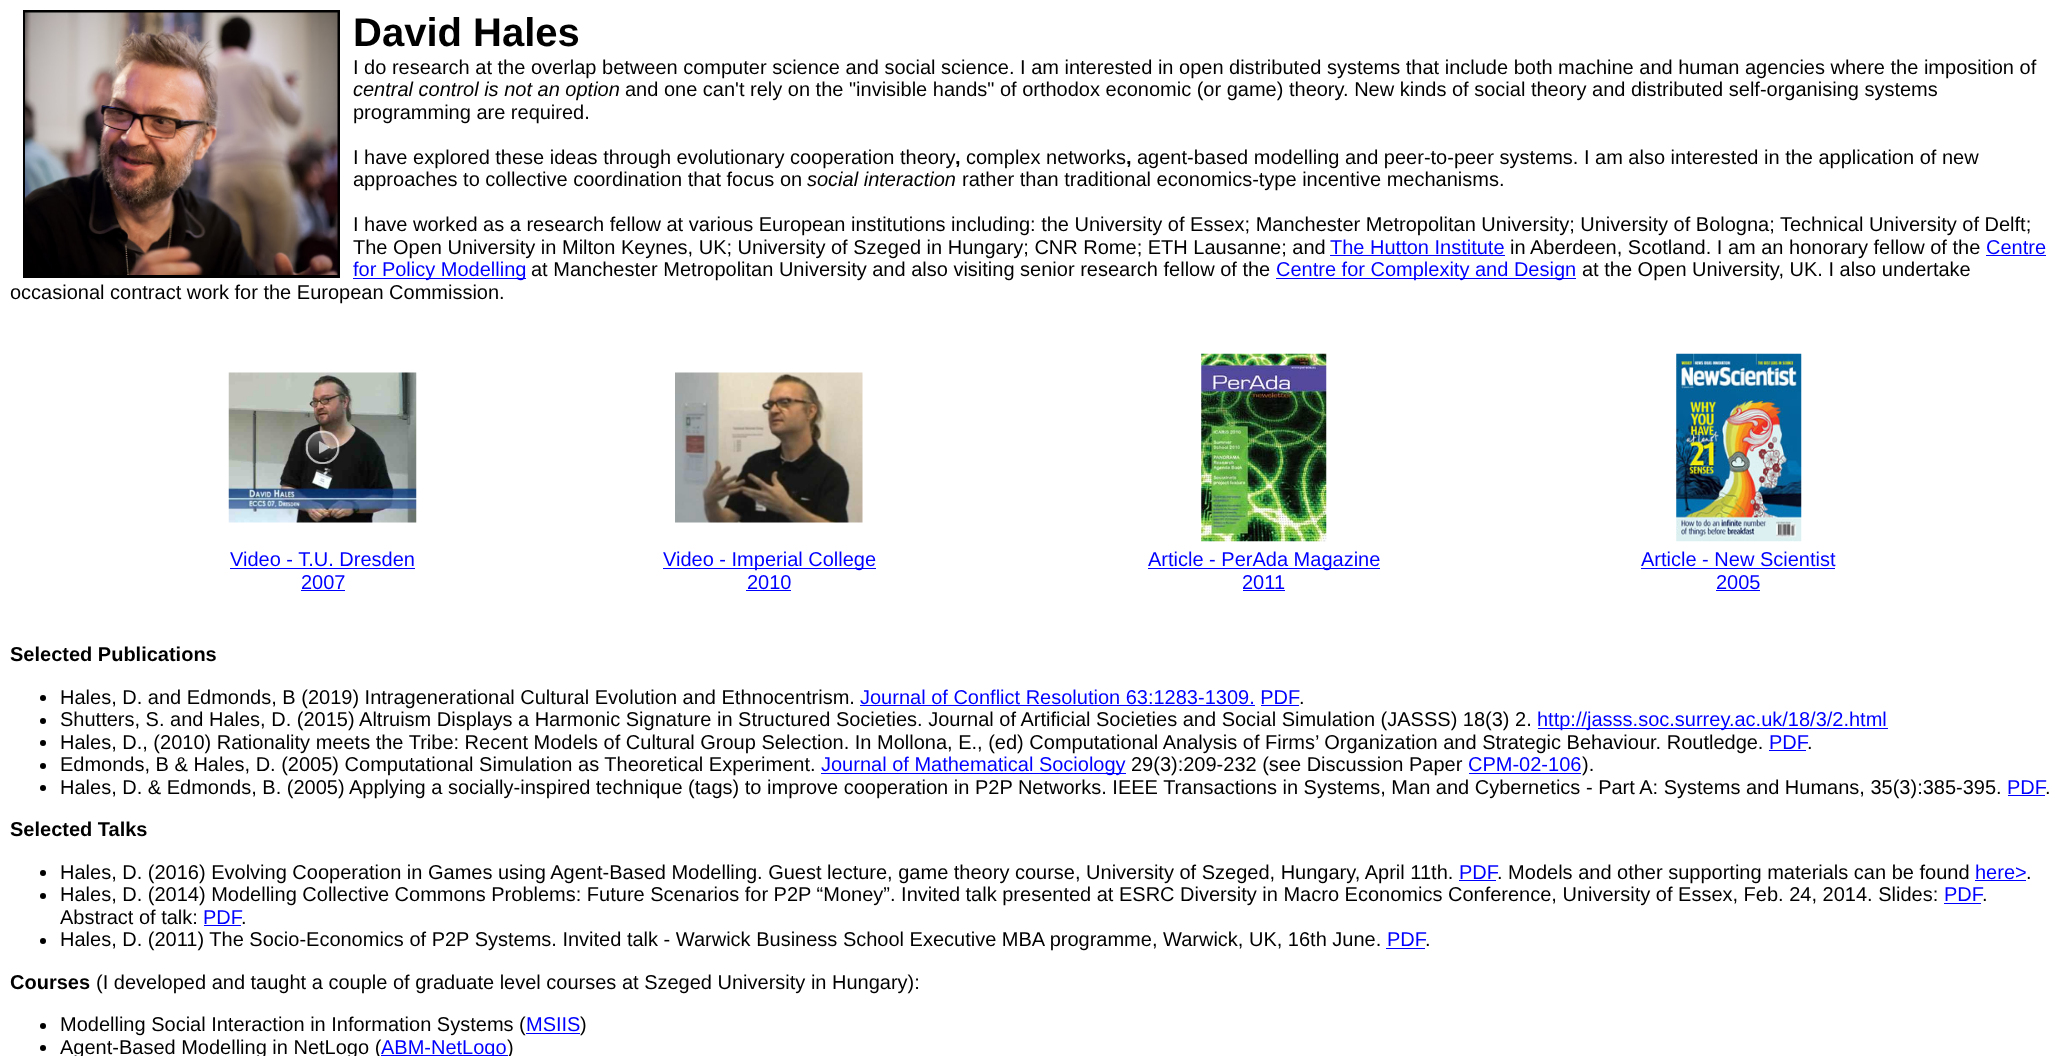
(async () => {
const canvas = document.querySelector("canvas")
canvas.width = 2068
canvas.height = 1056
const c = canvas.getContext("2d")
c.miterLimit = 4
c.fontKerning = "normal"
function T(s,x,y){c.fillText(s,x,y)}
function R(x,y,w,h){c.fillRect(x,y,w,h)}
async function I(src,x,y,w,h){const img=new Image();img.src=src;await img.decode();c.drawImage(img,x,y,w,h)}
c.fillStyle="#fff"
R(0,0,2068,1056)
c.strokeStyle="#000"
c.lineWidth=3
c.strokeRect(24.5,11.5,314,265)
await I("1.png",25,12,313,263)
c.font="bold 40px Liberation Sans"
c.fillStyle="#000"
T("David Hales",353,46)
c.font="20px Liberation Sans"
T("I do research at the overlap between computer science and social science. I am interested in open distributed systems that include both machine and human agencies where the imposition of",353,74)
c.font="italic 20px Liberation Sans"
T("central control is not an option",353,96)
c.font="20px Liberation Sans"
T("and one can't rely on the \"invisible hands\" of orthodox economic (or game) theory. New kinds of social theory and distributed self-organising systems",625,96)
T("programming are required.",353,119)
T("I have explored these ideas through evolutionary cooperation theory",353,164)
c.font="bold 20px Liberation Sans"
T(",",955,164)
c.font="20px Liberation Sans"
T("complex networks",966,164)
c.font="bold 20px Liberation Sans"
T(",",1126,164)
c.font="20px Liberation Sans"
T("agent-based modelling and peer-to-peer systems. I am also interested in the application of new",1137,164)
T("approaches to collective coordination that focus on",353,186)
c.font="italic 20px Liberation Sans"
T("social interaction",807,186)
c.font="20px Liberation Sans"
T("rather than traditional economics-type incentive mechanisms.",962,186)
T("I have worked as a research fellow at various European institutions including: the University of Essex; Manchester Metropolitan University; University of Bologna; Technical University of Delft;",353,231)
T("The Open University in Milton Keynes, UK; University of Szeged in Hungary; CNR Rome; ETH Lausanne; and",353,254)
c.fillStyle="#00f"
T("The Hutton Institute",1330,254)
R(1330,255,175,1)
c.fillStyle="#000"
T("in",1510,254)
T("Aberdeen, Scotland. I am an honorary fellow of the",1530,254)
c.fillStyle="#00f"
T("Centre",1986,254)
R(1986,255,60,1)
R(353,278,173,1)
T("for Policy Modelling",353,276)
c.fillStyle="#000"
T("at Manchester Metropolitan University and also visiting senior research fellow of the",531,276)
c.fillStyle="#00f"
R(1276,278,300,1)
T("Centre for Complexity and Design",1276,276)
c.fillStyle="#000"
T("at the Open University, UK. I also undertake",1582,276)
T("occasional contract work for the European Commission.",10,299)
await I("2.png",228,372,189,151)
await I("3.png",675,372,188,151)
await I("4.png",1201,353,126,189)
await I("5.png",1676,353,126,189)
c.fillStyle="#00f"
T("Video - T.U. Dresden",230,566)
R(230,568,185,1)
T("2007",301,589)
R(301,590,44,1)
R(663,568,213,1)
T("Video - Imperial College",663,566)
T("2010",747,589)
R(746,590,45,1)
R(1148,568,232,1)
T("Article - PerAda Magazine",1148,566)
T("2011",1242,589)
R(1243,590,42,1)
T("Article - New Scientist",1641,566)
R(1641,568,194,1)
T("2005",1716,589)
R(1716,590,44,1)
c.font="bold 20px Liberation Sans"
c.fillStyle="#000"
T("Selected Publications",10,661)
c.beginPath()
c.arc(43,698,3,0,7)
c.fill()
c.font="20px Liberation Sans"
T("Hales, D. and Edmonds, B (2019) Intragenerational Cultural Evolution and Ethnocentrism.",60,704)
c.fillStyle="#00f"
T("Journal of Conflict Resolution 63:1283-1309. PDF",860,704)
R(860,705,395,1)
c.fillStyle="#000"
T(".",1299,704)
c.fillStyle="#00f"
R(1261,705,38,1)
c.fillStyle="#000"
c.beginPath()
c.arc(43,721,3,0,7)
c.fill()
T("Shutters, S. and Hales, D. (2015) Altruism Displays a Harmonic Signature in Structured Societies. Journal of Artificial Societies and Social Simulation (JASSS) 18(3) 2.",60,726)
c.fillStyle="#00f"
R(1538,728,350,1)
T("http://jasss.soc.surrey.ac.uk/18/3/2.html",1537,726)
c.fillStyle="#000"
c.beginPath()
c.arc(43,743,3,0,7)
c.fill()
T("Hales, D., (2010) Rationality meets the Tribe: Recent Models of Cultural Group Selection. In Mollona, E., (ed) Computational Analysis of Firms’ Organization and Strategic Behaviour. Routledge.",60,749)
c.fillStyle="#00f"
T("PDF",1769,749)
R(1769,750,37,1)
c.fillStyle="#000"
T(".",1807,749)
c.beginPath()
c.arc(43,766,3,0,7)
c.fill()
T("Edmonds, B & Hales, D. (2005) Computational Simulation as Theoretical Experiment.",60,771)
c.fillStyle="#00f"
R(821,773,305,1)
T("Journal of Mathematical Sociology",821,771)
c.fillStyle="#000"
T("29(3):209-232 (see Discussion Paper",1131,771)
c.fillStyle="#00f"
T("CPM-02-106",1468,771)
R(1469,773,112,1)
c.fillStyle="#000"
T(").",1582,771)
c.beginPath()
c.arc(43,788,3,0,7)
c.fill()
T("Hales, D. & Edmonds, B. (2005) Applying a socially-inspired technique (tags) to improve cooperation in P2P Networks. IEEE Transactions in Systems, Man and Cybernetics - Part A: Systems and Humans, 35(3):385-395.",60,794)
c.fillStyle="#00f"
T("PDF",2007,794)
R(2008,795,37,1)
c.fillStyle="#000"
T(".",2045,794)
c.font="bold 20px Liberation Sans"
T("Selected Talks",10,836)
c.beginPath()
c.arc(43,873,3,0,7)
c.fill()
c.font="20px Liberation Sans"
T("Hales, D. (2016) Evolving Cooperation in Games using Agent-Based Modelling. Guest lecture, game theory course, University of Szeged, Hungary, April 11th.",60,879)
c.fillStyle="#00f"
T("PDF",1459,879)
R(1459,880,37,1)
c.fillStyle="#000"
T(". Models and other supporting materials can be found",1497,879)
c.fillStyle="#00f"
T("here>",1975,879)
R(1975,880,51,1)
c.fillStyle="#000"
T(".",2026,879)
c.beginPath()
c.arc(43,896,3,0,7)
c.fill()
T("Hales, D. (2014) Modelling Collective Commons Problems: Future Scenarios for P2P “Money”. Invited talk presented at ESRC Diversity in Macro Economics Conference, University of Essex, Feb. 24, 2014. Slides:",60,901)
c.fillStyle="#00f"
T("PDF",1944,901)
R(1944,903,37,1)
c.fillStyle="#000"
T(".",1982,901)
T("Abstract of talk:",60,924)
c.fillStyle="#00f"
T("PDF",203,924)
R(204,925,37,1)
c.fillStyle="#000"
T(".",241,924)
c.beginPath()
c.arc(43,941,3,0,7)
c.fill()
T("Hales, D. (2011) The Socio-Economics of P2P Systems. Invited talk - Warwick Business School Executive MBA programme, Warwick, UK, 16th June.",60,946)
c.fillStyle="#00f"
T("PDF",1387,946)
R(1386,948,39,1)
c.fillStyle="#000"
T(".",1425,946)
c.font="bold 20px Liberation Sans"
T("Courses",10,989)
c.font="20px Liberation Sans"
T("(I developed and taught a couple of graduate level courses at Szeged University in Hungary):",96,989)
c.beginPath()
c.arc(43,1026,3,0,7)
c.fill()
T("Modelling Social Interaction in Information Systems (",60,1031)
c.fillStyle="#00f"
T("MSIIS",526,1031)
R(526,1033,54,1)
c.fillStyle="#000"
T(")",580,1031)
c.beginPath()
c.arc(43,1048,3,0,7)
c.fill()
T("Agent-Based Modelling in NetLogo (",60,1054)
c.fillStyle="#00f"
R(381,1055,127,1)
T("ABM-NetLogo",381,1054)
c.fillStyle="#000"
T(")",507,1054)
})()
